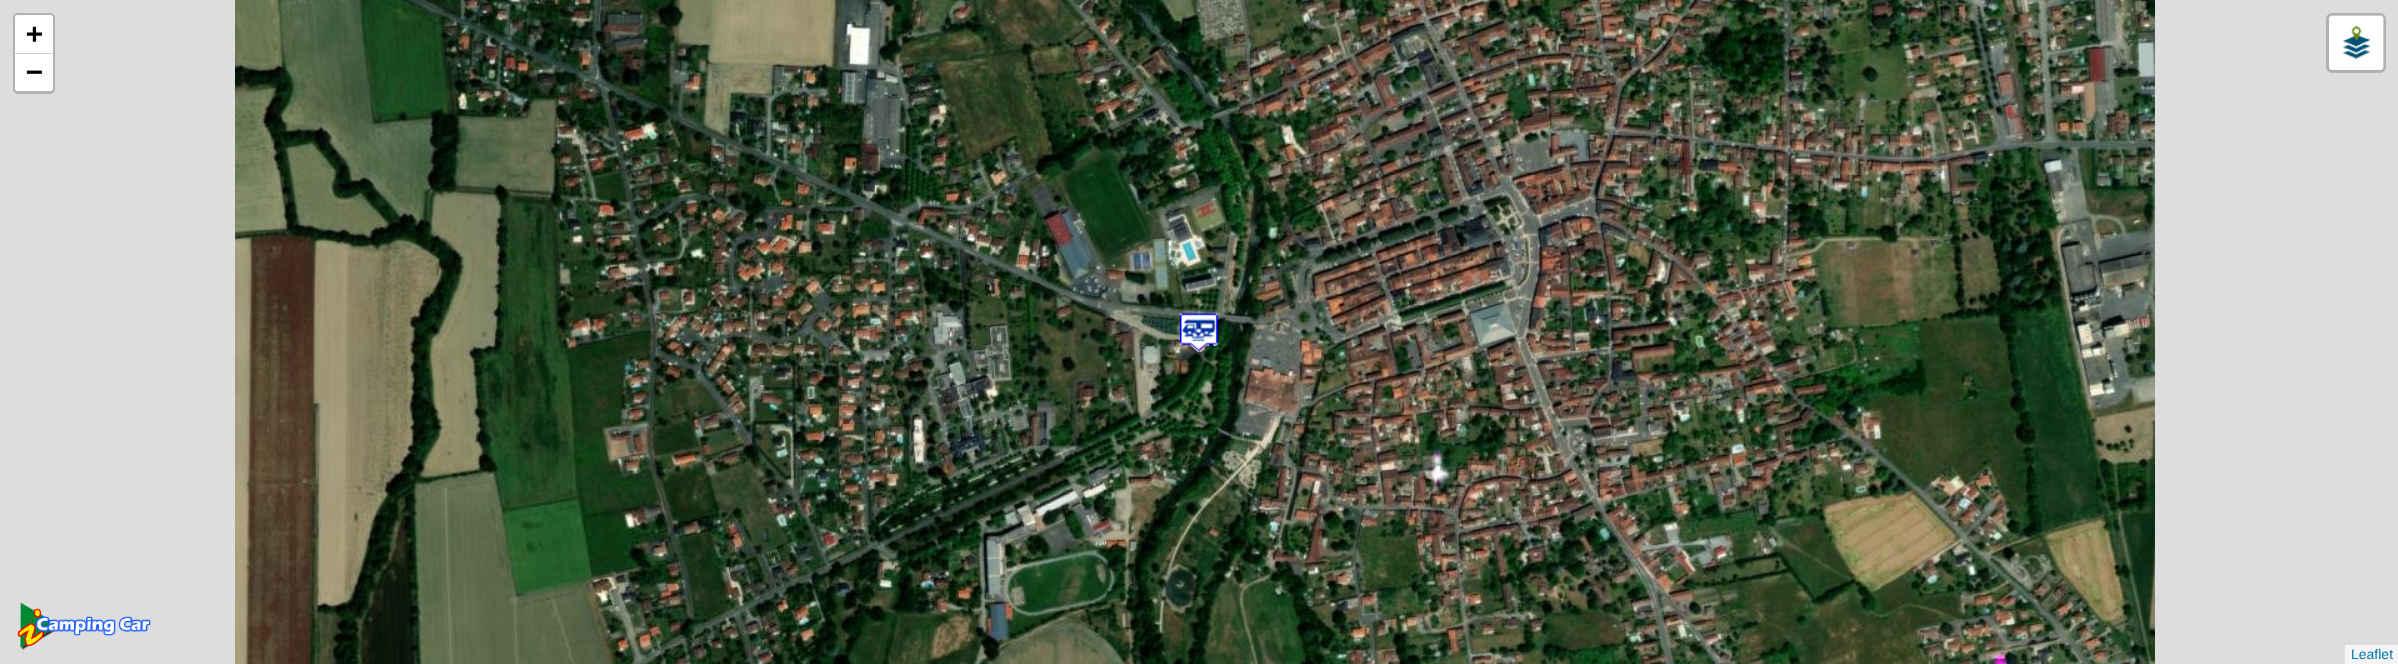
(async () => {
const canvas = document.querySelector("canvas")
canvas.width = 2398
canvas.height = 664
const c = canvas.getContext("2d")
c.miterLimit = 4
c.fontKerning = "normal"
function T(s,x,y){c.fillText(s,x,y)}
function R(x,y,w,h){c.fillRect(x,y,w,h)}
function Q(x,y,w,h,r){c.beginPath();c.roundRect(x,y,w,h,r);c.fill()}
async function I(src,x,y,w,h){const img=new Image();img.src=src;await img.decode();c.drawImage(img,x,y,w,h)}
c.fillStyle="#ddd"
R(0,0,2398,664)
await I("1.png",235,0,320,300)
await I("2.png",555,0,320,300)
await I("3.png",875,0,320,300)
await I("4.png",1195,0,320,300)
await I("5.png",1515,0,320,300)
await I("6.png",1835,0,320,300)
await I("7.png",235,300,320,320)
await I("8.png",555,300,320,320)
await I("9.png",875,300,320,320)
await I("10.png",1195,300,320,320)
await I("11.png",1515,300,320,320)
await I("12.png",1835,300,320,320)
await I("13.png",235,620,320,44)
await I("14.png",555,620,320,44)
await I("15.png",875,620,320,44)
await I("16.png",1195,620,320,44)
await I("17.png",1515,620,320,44)
await I("18.png",1835,620,320,44)
await I("19.png",1180,313,38,39)
await I("20.png",1180,313,38,39)
c.beginPath()
c.roundRect(14.5,14.5,39,78,3.5)
c.strokeStyle="#b1b1b1"
c.lineWidth=3
c.stroke()
c.fillStyle="#fff"
c.beginPath()
c.roundRect(15,15,38,39,[2.5,2.5,0,0])
c.fill()
c.fillStyle="#ccc"
R(15,53,38,1)
c.font="bold 28px DejaVu Sans Mono"
c.fillStyle="#000"
T("+",26,43)
c.fillStyle="#fff"
c.beginPath()
c.roundRect(15,54,38,37,[0,0,2.5,2.5])
c.fill()
c.fillStyle="#000"
T("−",26,81)
c.fillStyle="#fff"
Q(2329,15,55,55,4)
c.beginPath()
c.roundRect(2327.5,14.5,57,57,4.5)
c.strokeStyle="#00000033"
c.stroke()
await I("21.png",2342,26,29,33)
await I("22.png",17,602,134,49)
c.fillStyle="#f5f5f5"
R(2345,645,53,19)
c.font="14px Liberation Sans"
c.fillStyle="#0078a8"
T("Leaflet",2351,659)
})()
